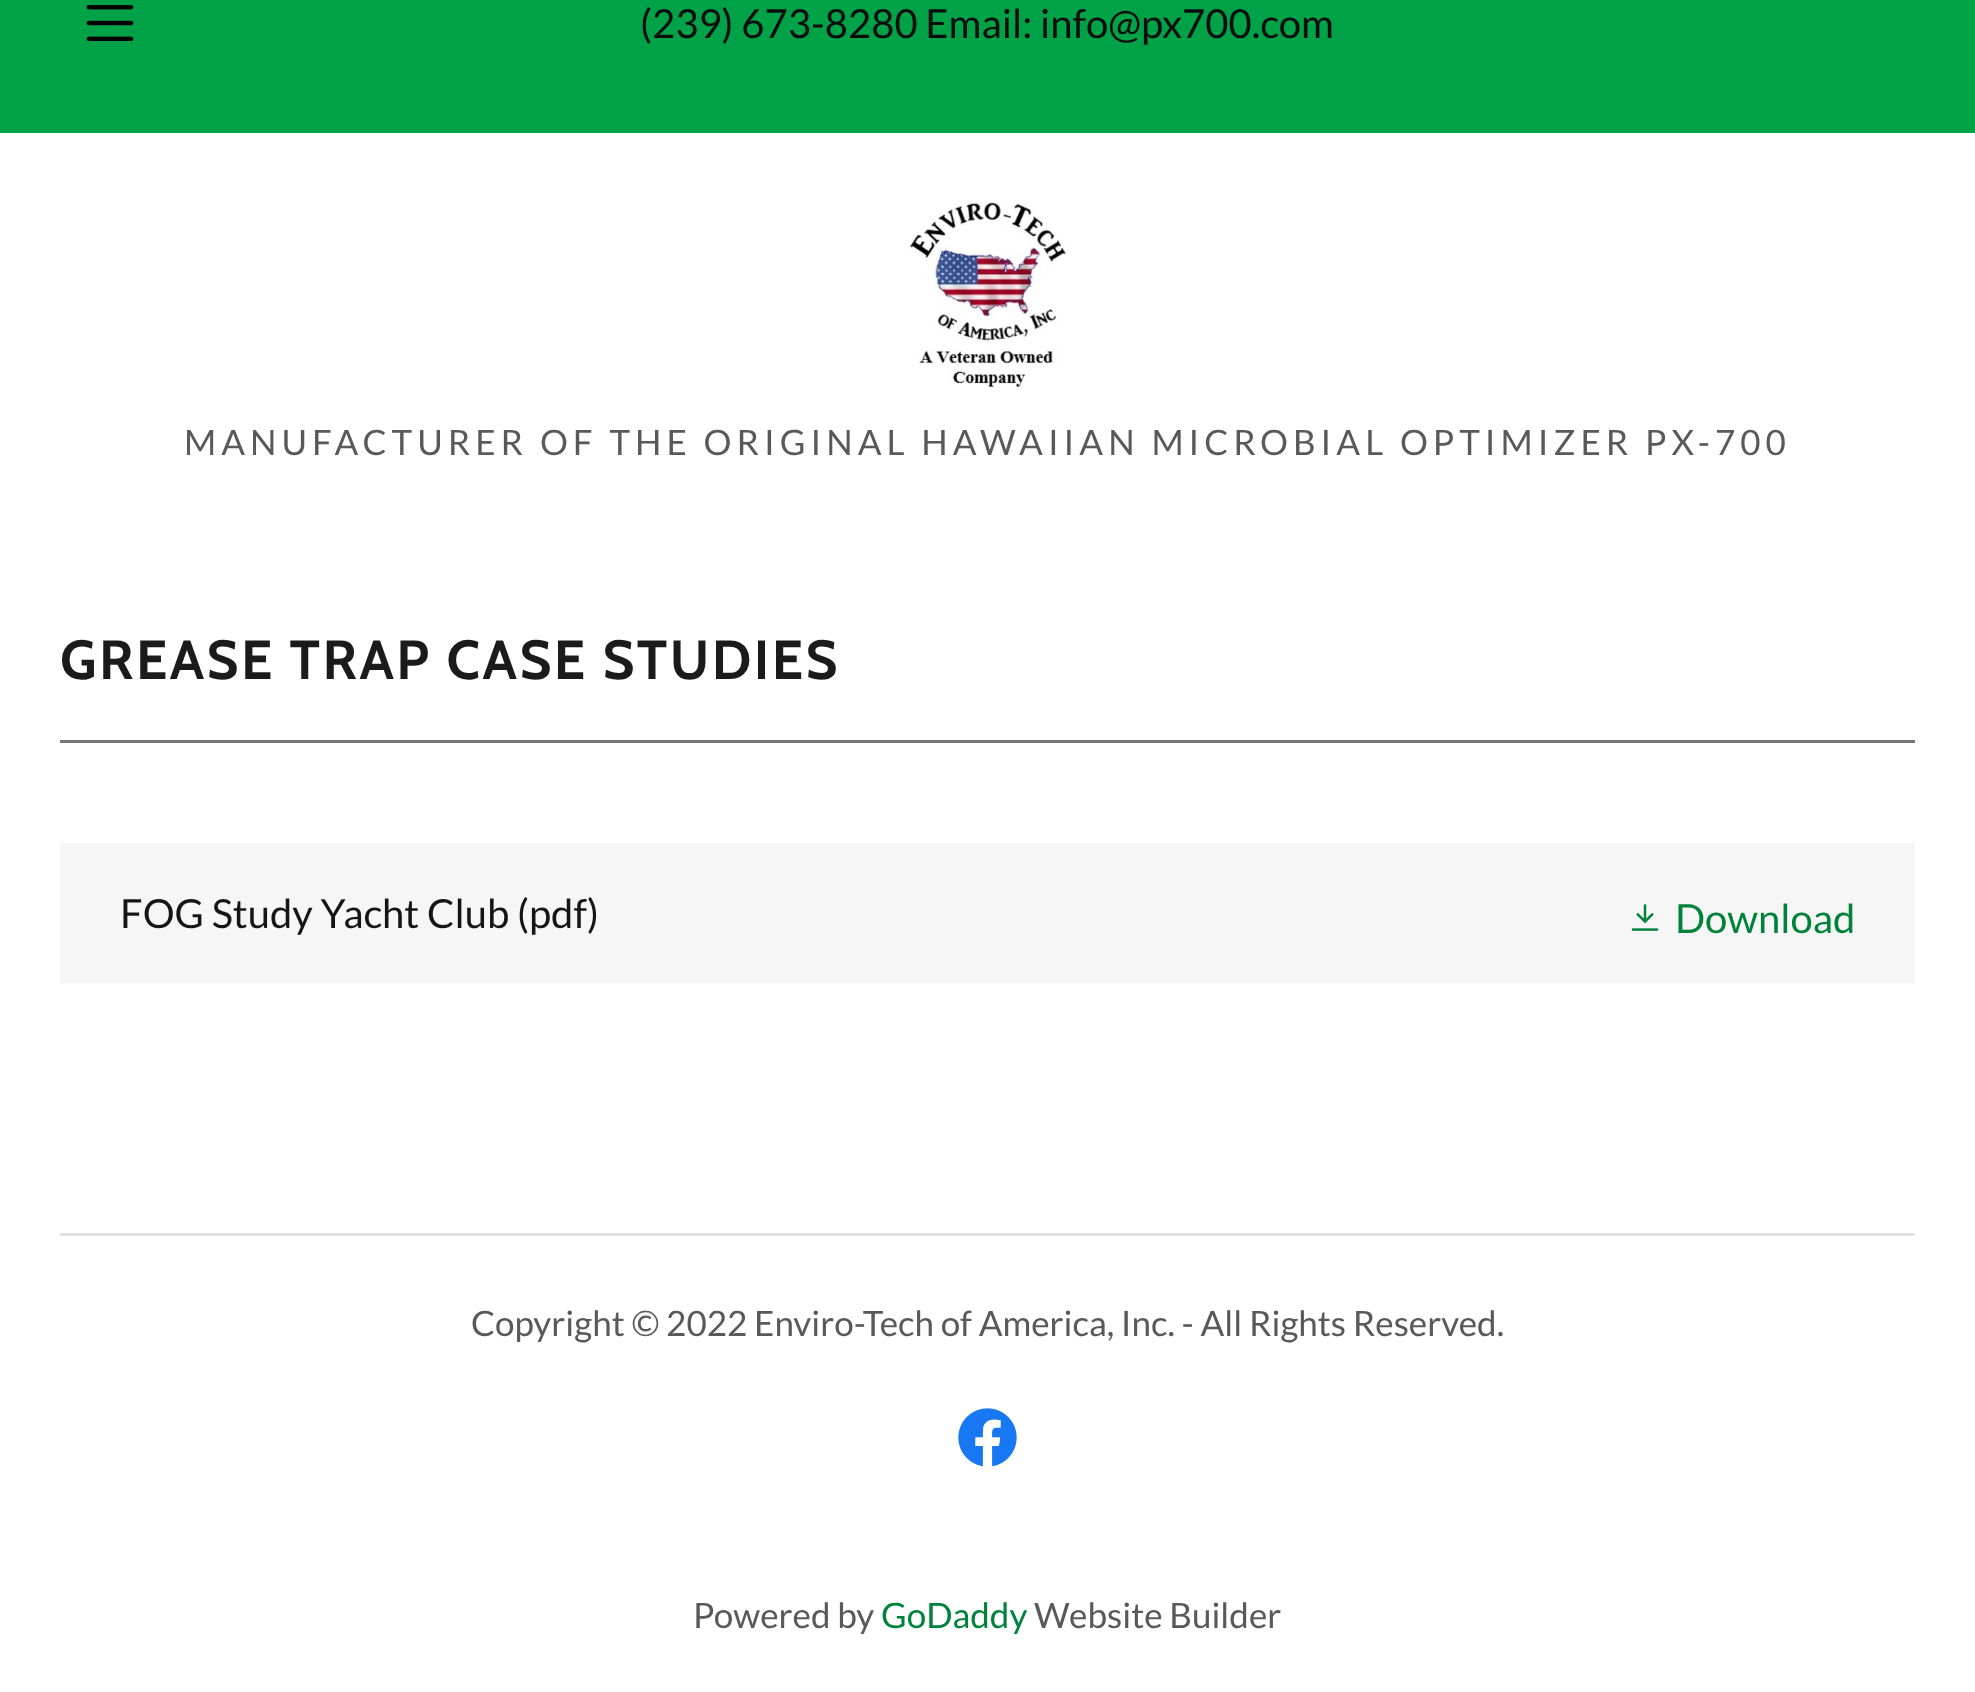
(async () => {
const canvas = document.querySelector("canvas")
canvas.width = 1975
canvas.height = 1692
const c = canvas.getContext("2d")
c.miterLimit = 4
c.fontKerning = "normal"
function T(s,x,y){c.fillText(s,x,y)}
function R(x,y,w,h){c.fillRect(x,y,w,h)}
async function I(src,x,y,w,h){const img=new Image();img.src=src;await img.decode();c.drawImage(img,x,y,w,h)}
c.fillStyle="#fff"
R(0,0,1975,1692)
c.fillStyle="#00a248"
R(0,0,1975,133)
await I("1.png",86,5,48,36)
c.font="40px Lato"
c.fillStyle="#0b0c0c"
T("(239) 673-8280 Email: info@px700.com",640,38)
await I("2.png",910,202,156,185)
c.letterSpacing="5px"
c.font="35px Lato"
c.fillStyle="#595959"
T("MANUFACTURER OF THE ORIGINAL HAWAIIAN MICROBIAL OPTIMIZER PX-700",184,455)
c.letterSpacing="2.5px"
c.font="bold 55px Cabin"
c.fillStyle="#1b1b1b"
T("GREASE TRAP CASE STUDIES",60,679)
c.fillStyle="#777"
R(60,740,1855,3)
c.fillStyle="#f6f6f6"
R(60,843,1855,140)
c.letterSpacing="0px"
c.font="40px Lato"
c.fillStyle="#151515"
T("FOG Study Yacht Club (pdf)",120,928)
await I("3.png",1631,904,28,27)
c.fillStyle="#00823a"
T("Download",1675,933)
c.fillStyle="#e2e2e2"
R(60,1233,1855,3)
c.font="35px Lato"
c.fillStyle="#595959"
T("Copyright © 2022 Enviro-Tech of America, Inc. - All Rights Reserved.",471,1336)
await I("4.png",958,1408,59,59)
T("Powered by",693,1628)
c.fillStyle="#00823a"
T("GoDaddy",881,1628)
c.fillStyle="#595959"
T("Website Builder",1034,1628)
})()
